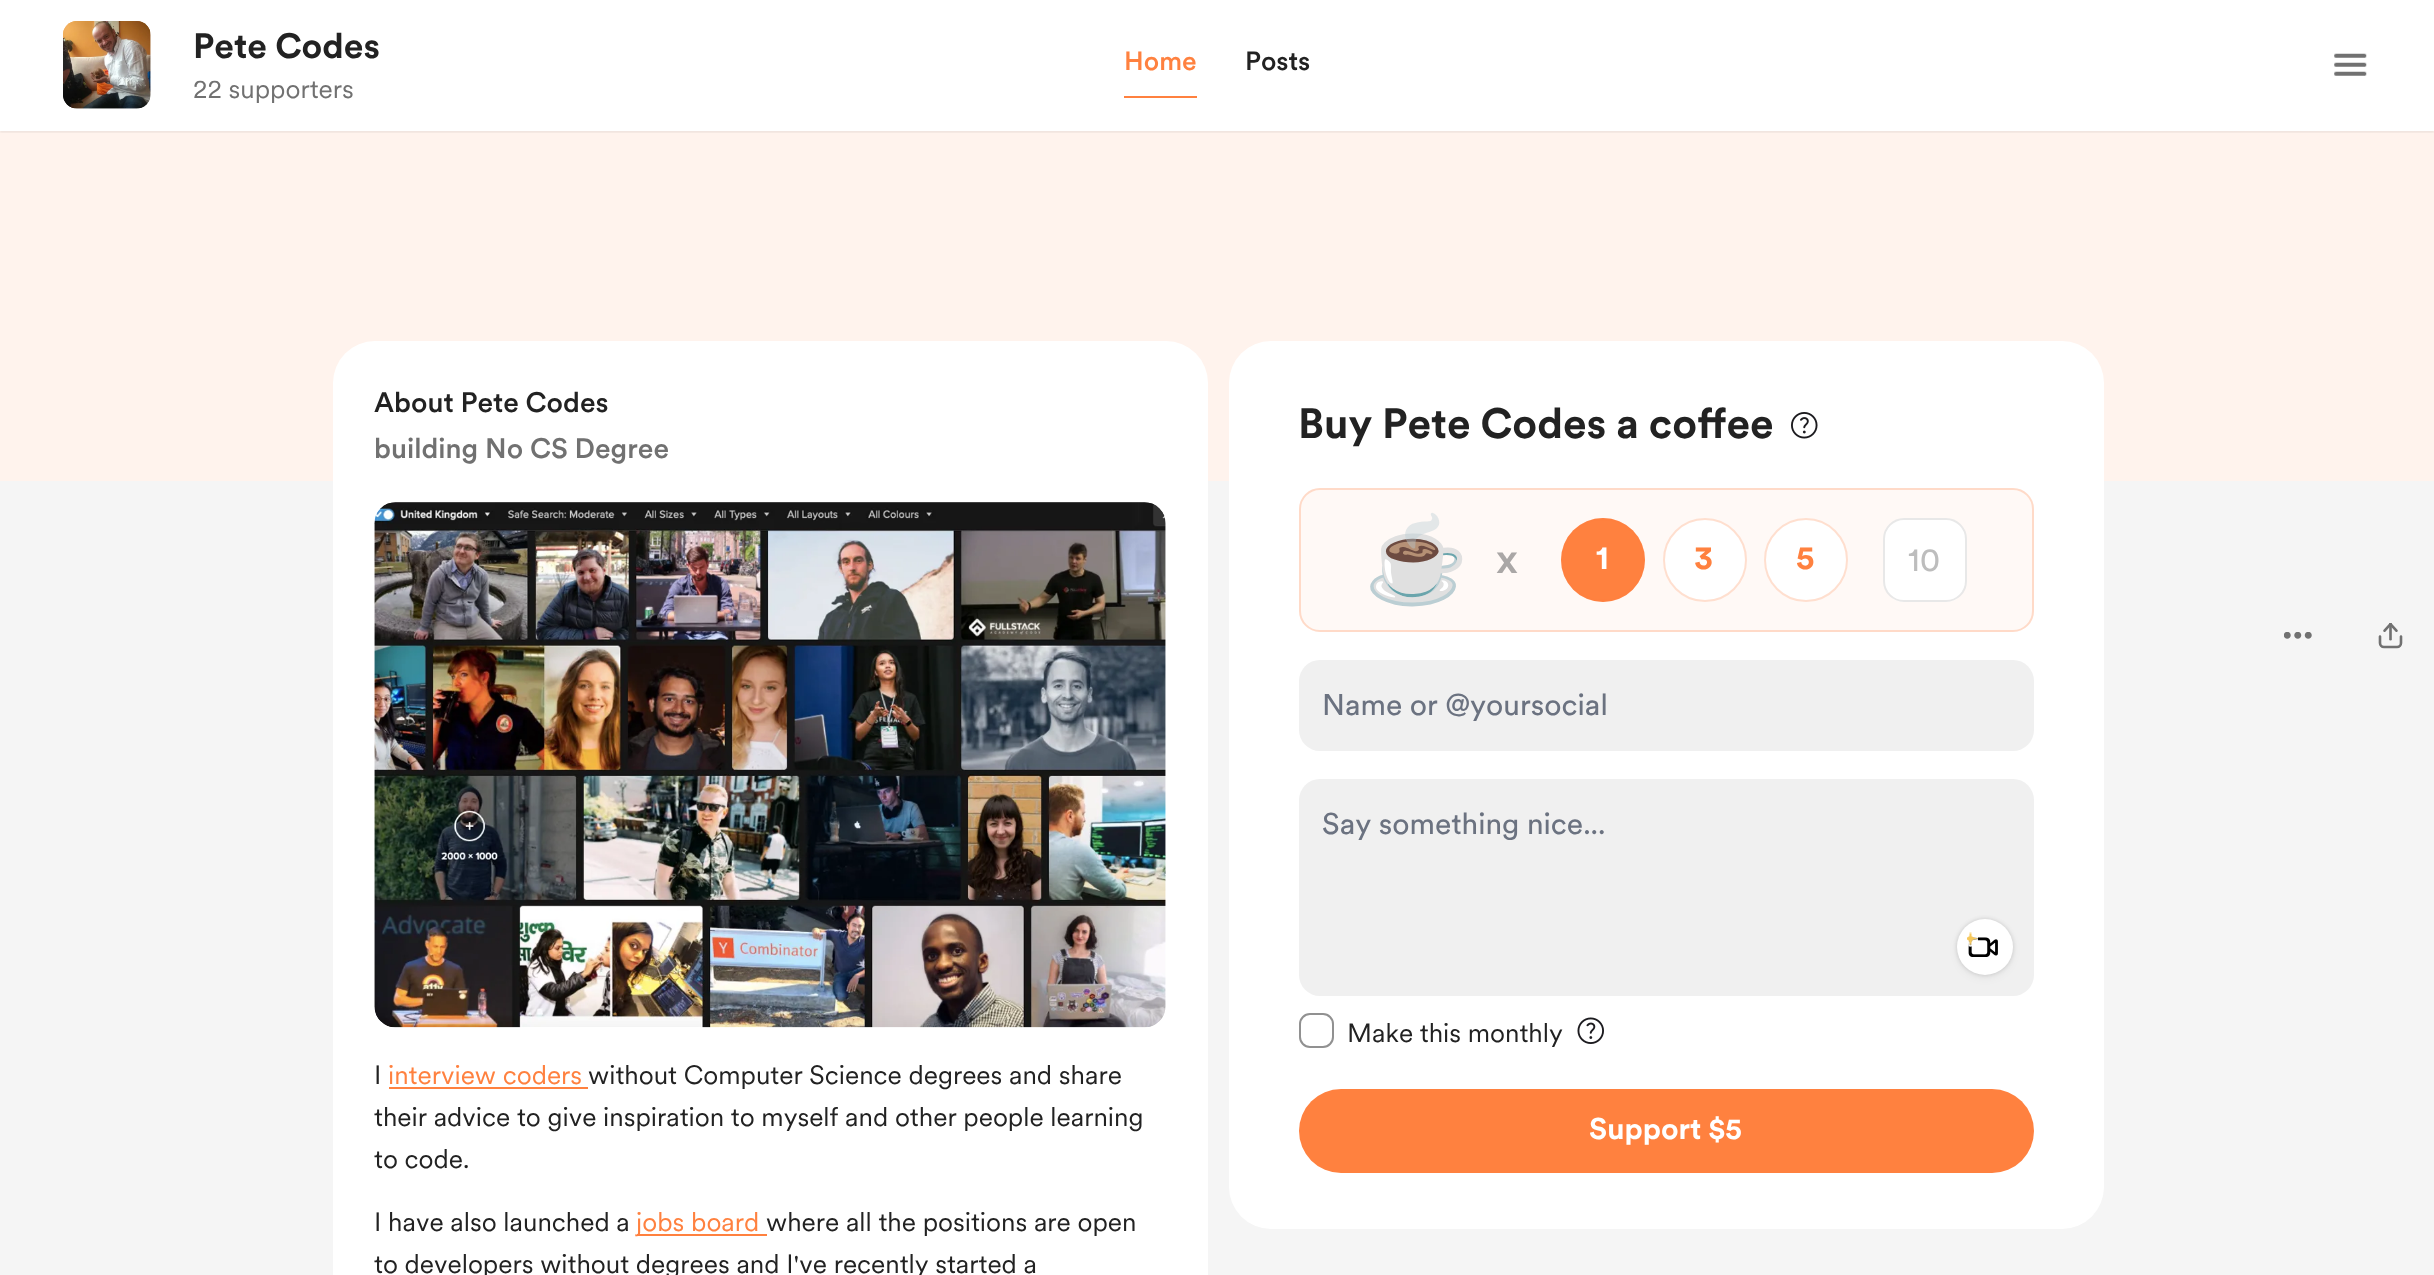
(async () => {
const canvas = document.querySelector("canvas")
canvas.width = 2434
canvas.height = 1275
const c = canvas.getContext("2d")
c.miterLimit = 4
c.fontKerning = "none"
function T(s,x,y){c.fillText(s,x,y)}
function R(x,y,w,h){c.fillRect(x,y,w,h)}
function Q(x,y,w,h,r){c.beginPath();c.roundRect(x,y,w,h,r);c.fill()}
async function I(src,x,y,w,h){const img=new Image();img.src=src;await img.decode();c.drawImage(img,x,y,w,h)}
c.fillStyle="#fff"
R(0,0,2434,1275)
c.fillStyle="#fff3ed"
R(0,131,2434,350)
c.save()
c.beginPath()
c.rect(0,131,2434,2)
c.clip()
c.fillStyle="#0000000f"
c.filter="blur(1px)"
c.beginPath()
c.rect(0,2,2434,131)
c.fill()
c.filter="none"
c.restore()
await I("1.png",63,21,88,88)
await I("2.png",63,21,88,88)
c.font="bold 35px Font"
c.fillStyle="#222"
T("Pete Codes",193,58)
c.font="26.25px 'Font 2'"
c.fillStyle="#717171"
T("22 supporters",193,98)
c.font="500 26.25px Font"
c.fillStyle="#ff813f"
T("Home",1124,70)
R(1124,96,73,2)
c.fillStyle="#222"
T("Posts",1245,70)
await I("3.png",2334,53,33,23)
c.fillStyle="#f5f5f5"
R(0,481,2434,794)
c.fillStyle="#fff"
Q(333,341,875,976,42)
c.font="500 28px Font"
c.fillStyle="#222"
T("About Pete Codes",374,412)
c.fillStyle="#717171"
T("building No CS Degree",374,458)
await I("4.png",374,502,792,526)
await I("5.png",374,502,792,526)
c.font="26.25px 'Font 2'"
c.fillStyle="#222"
T("I",374,1084)
c.fillStyle="#ff813f"
T("interview coders",388,1084)
R(389,1087,199,2)
c.fillStyle="#222"
T("without Computer Science degrees and share",588,1084)
T("their advice to give inspiration to myself and other people learning",374,1126)
T("to code.",374,1168)
T("I have also launched a",374,1231)
c.fillStyle="#ff813f"
R(637,1234,130,2)
T("jobs board",636,1231)
c.fillStyle="#222"
T("where all the positions are open",766,1231)
T("to developers without degrees and I've recently started a",374,1273)
c.fillStyle="#fff"
Q(1229,341,875,888,42)
c.font="bold 42px Font"
c.fillStyle="#222"
T("Buy Pete Codes a coffee",1298,438)
await I("6.png",1791,412,27,27)
c.fillStyle="#fff9f6"
Q(1299,488,735,144,21)
c.beginPath()
c.roundRect(1300,489,733,142,20)
c.strokeStyle="#ff813f40"
c.lineWidth=2
c.stroke()
c.font="84px Noto Color Emoji"
c.fillStyle="#000"
T("☕",1364,589)
c.font="500 42px Font"
c.fillStyle="#aaa7a6"
T("x",1496,573)
c.fillStyle="#ff813f"
c.beginPath()
c.arc(1603,560,42,0,7)
c.fill()
c.beginPath()
c.arc(1603,560,41,0,7)
c.stroke()
c.font="bold 33px Font"
c.fillStyle="#fff"
T("1",1596,569)
c.beginPath()
c.arc(1705,560,42,0,7)
c.fill()
c.beginPath()
c.arc(1705,560,41,0,7)
c.stroke()
c.fillStyle="#ff813f"
T("3",1694,569)
c.fillStyle="#fff"
c.beginPath()
c.arc(1806,560,42,0,7)
c.fill()
c.beginPath()
c.arc(1806,560,41,0,7)
c.stroke()
c.fillStyle="#ff813f"
T("5",1796,569)
c.fillStyle="#fff"
Q(1883,518,84,84,21)
c.beginPath()
c.roundRect(1884,519,82,82,20)
c.strokeStyle="#2222221a"
c.stroke()
c.font="33px Font"
c.fillStyle="#bdbdbd"
T("10",1908,571)
c.fillStyle="#f0f0f0"
Q(1299,660,735,91,21)
c.font="29.75px Font"
c.fillStyle="#6b7280"
T("Name or @yoursocial",1322,715)
c.fillStyle="#f0f0f0"
Q(1299,779,735,217,21)
c.fillStyle="#6b7280"
T("Say something nice...",1322,834)
c.fillStyle="#0000000d"
c.filter="blur(4.5px)"
c.beginPath()
c.roundRect(1957,922,56,56,28)
c.fill()
c.filter="none"
c.fillStyle="#00000026"
c.filter="blur(2px)"
c.beginPath()
c.roundRect(1957,919,56,56,28)
c.fill()
c.filter="none"
c.fillStyle="#fff"
c.beginPath()
c.arc(1985,947,28,0,7)
c.fill()
await I("8.png",1968,937,30,20)
await I("7.png",1967,932,11,15)
c.beginPath()
c.roundRect(1300,1014,33,33,10)
c.strokeStyle="#919191"
c.stroke()
c.font="26.25px 'Font 2'"
c.fillStyle="#222"
T("Make this monthly",1347,1042)
await I("9.png",1577,1017,27,27)
c.fillStyle="#ff813f"
Q(1299,1089,735,84,42)
c.font="bold 29.75px Font"
c.fillStyle="#fff"
T("Support $5",1589,1139)
await I("10.png",2284,632,28,7)
await I("11.png",2378,623,25,26)
})()
